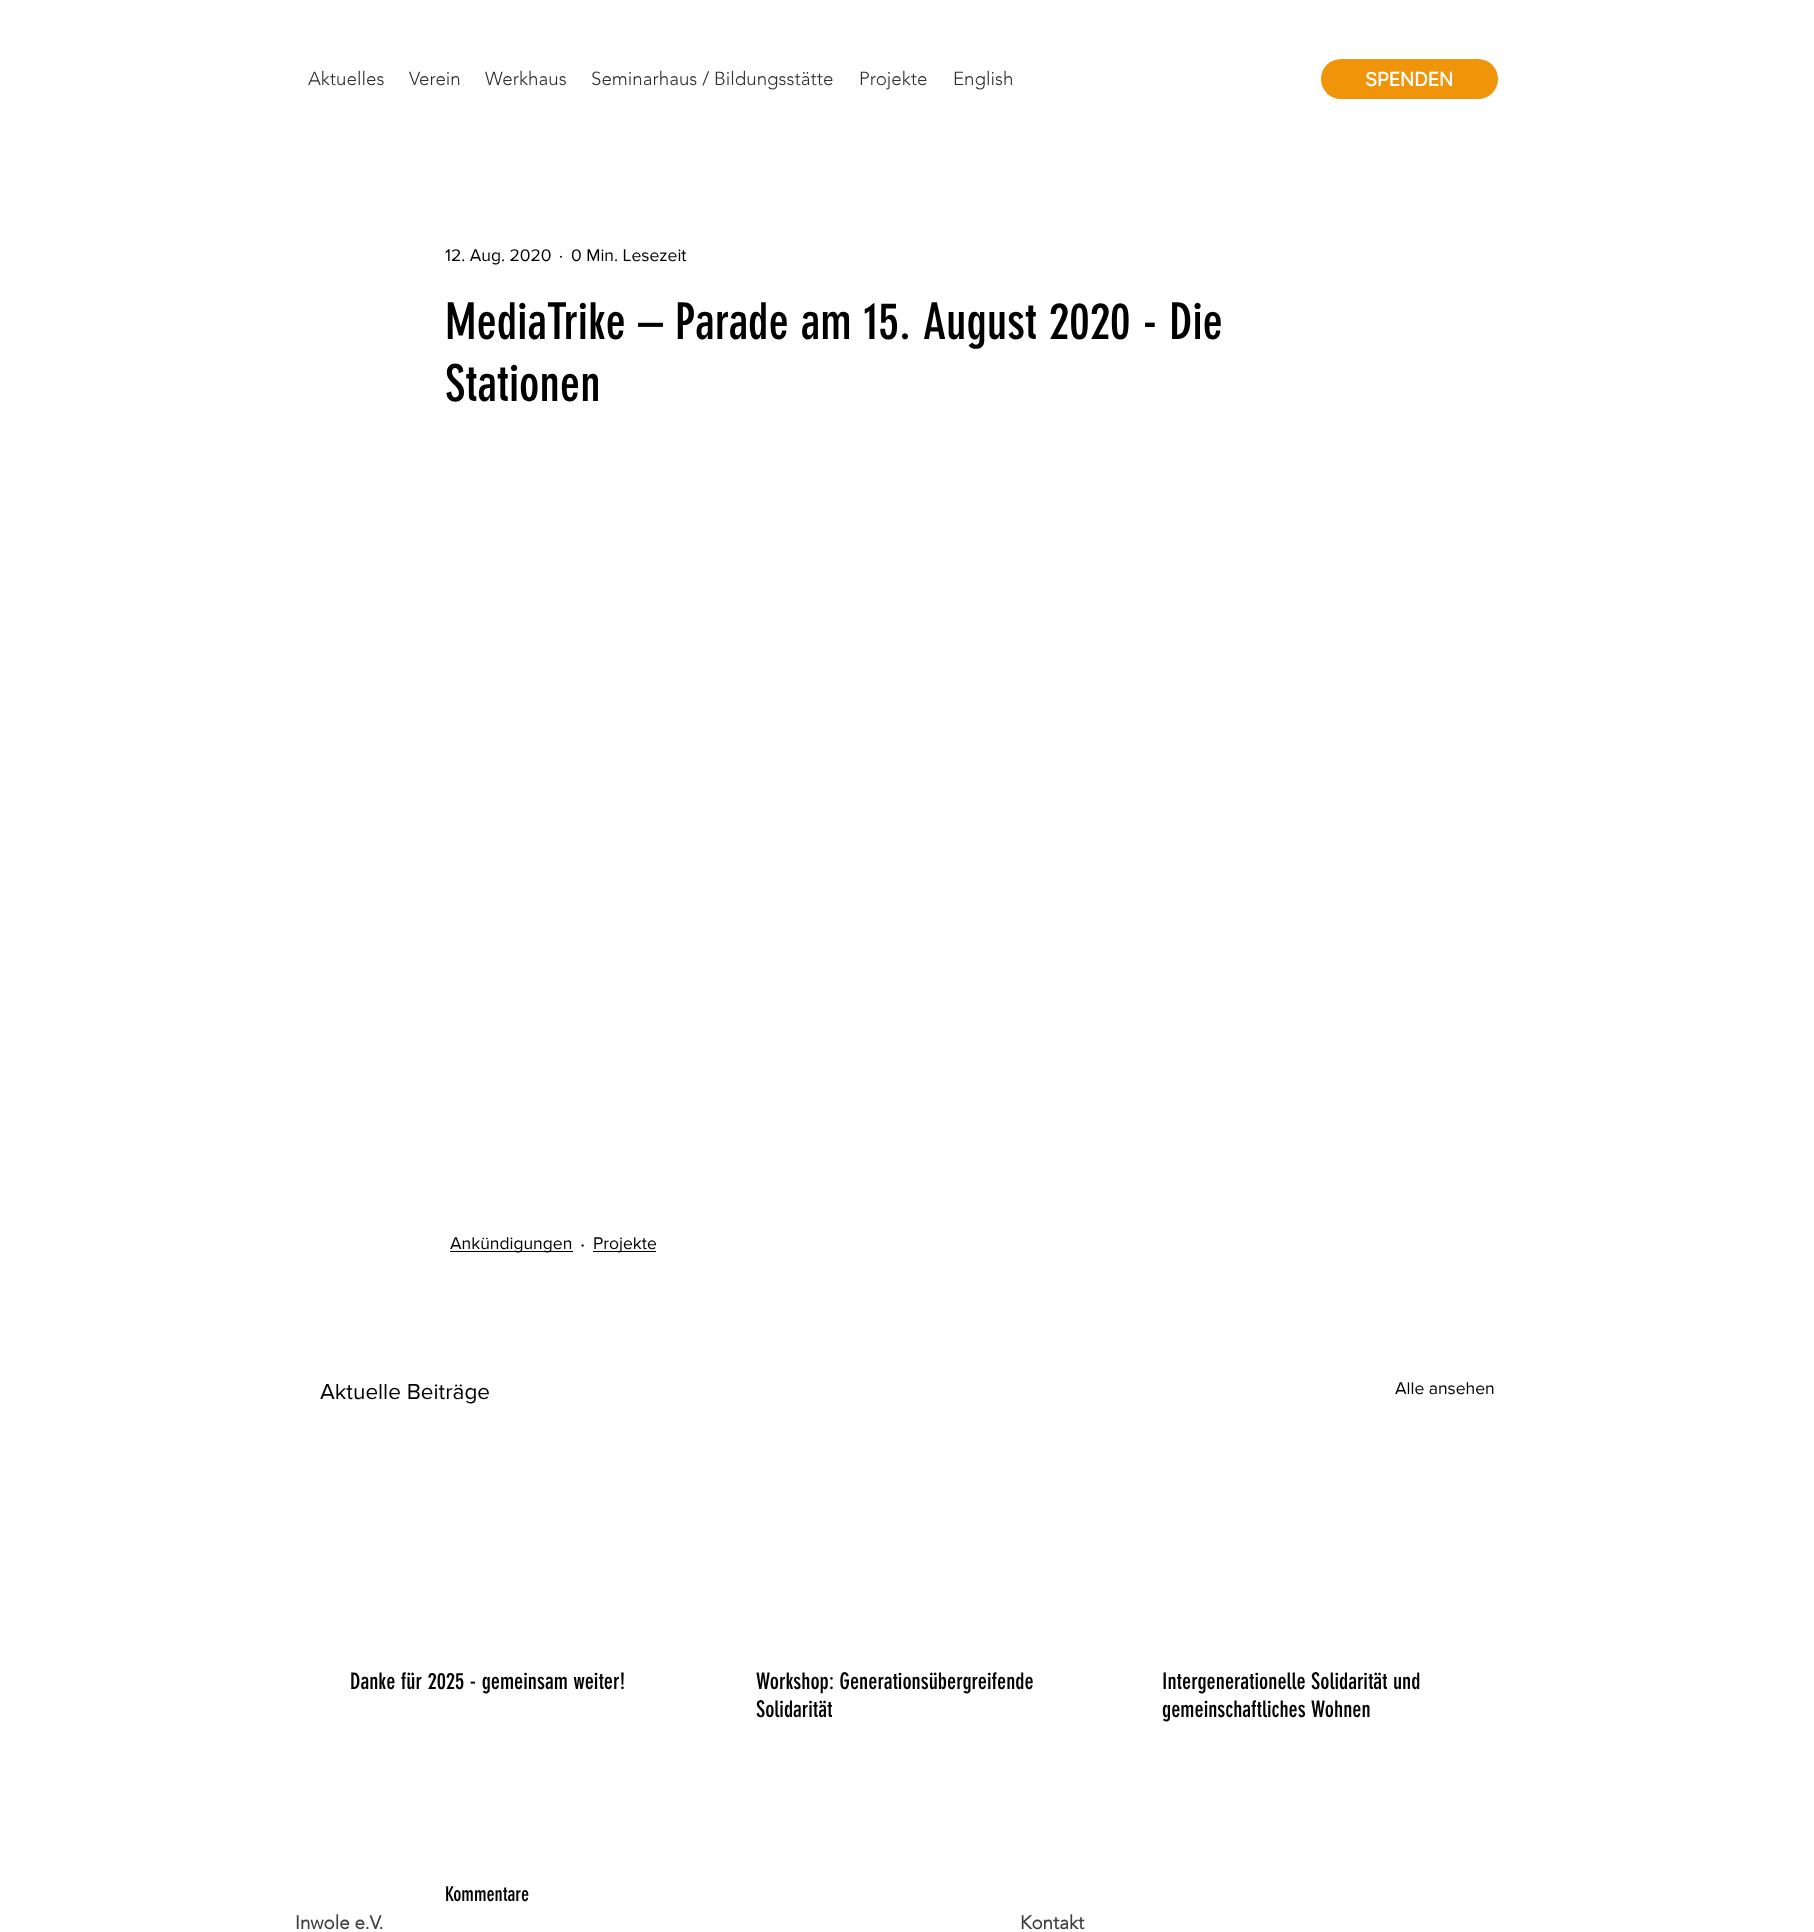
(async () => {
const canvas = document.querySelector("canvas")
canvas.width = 1814
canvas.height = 1932
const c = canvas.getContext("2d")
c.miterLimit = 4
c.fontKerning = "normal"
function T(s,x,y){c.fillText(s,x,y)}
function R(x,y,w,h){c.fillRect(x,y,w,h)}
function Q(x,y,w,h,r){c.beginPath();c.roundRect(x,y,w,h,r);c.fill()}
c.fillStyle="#fff"
R(0,0,1814,1932)
c.font="300 18.75px 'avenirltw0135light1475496'"
c.fillStyle="#2f2e2e"
T("Aktuelles",308,85)
T("Verein",409,85)
T("Werkhaus",485,85)
T("Seminarhaus / Bildungsstätte",591,85)
T("Projekte",859,85)
T("English",953,85)
c.fillStyle="#f0940a"
Q(1321,59,177,40,20)
c.font="bold 18.75px Inter"
c.fillStyle="#fff"
T("SPENDEN",1365,86)
c.font="17.5px 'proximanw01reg'"
c.fillStyle="#000"
T("12. Aug. 2020",445,261)
T("·",559,261)
T("0 Min. Lesezeit",571,261)
c.font="50px 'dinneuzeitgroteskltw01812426'"
T("MediaTrike – Parade am 15. August 2020 - Die",445,339)
T("Stationen",445,401)
R(450,1251,123,1)
c.font="17.5px 'proximanw01reg'"
T("Ankündigungen",450,1249)
c.font="22.5px 'proximanw01reg'"
T("·",580,1251)
R(593,1251,63,1)
c.font="17.5px 'proximanw01reg'"
T("Projekte",593,1249)
c.font="22.5px 'proximanw01reg'"
T("Aktuelle Beiträge",320,1399)
c.font="17.5px 'proximanw01reg'"
T("Alle ansehen",1395,1394)
c.font="22.5px 'dinneuzeitgroteskltw01812426'"
T("Danke für 2025 - gemeinsam weiter!",350,1689)
T("Workshop: Generationsübergreifende",756,1689)
T("Solidarität",756,1717)
T("Intergenerationelle Solidarität und",1162,1689)
T("gemeinschaftliches Wohnen",1162,1717)
c.font="20px 'dinneuzeitgroteskltw01812426'"
T("Kommentare",445,1901)
c.font="bold 18.75px 'avenirltw0135light1475496'"
c.fillStyle="#404040"
T("Inwole e.V.",295,1929)
T("Kontakt",1020,1929)
})()
